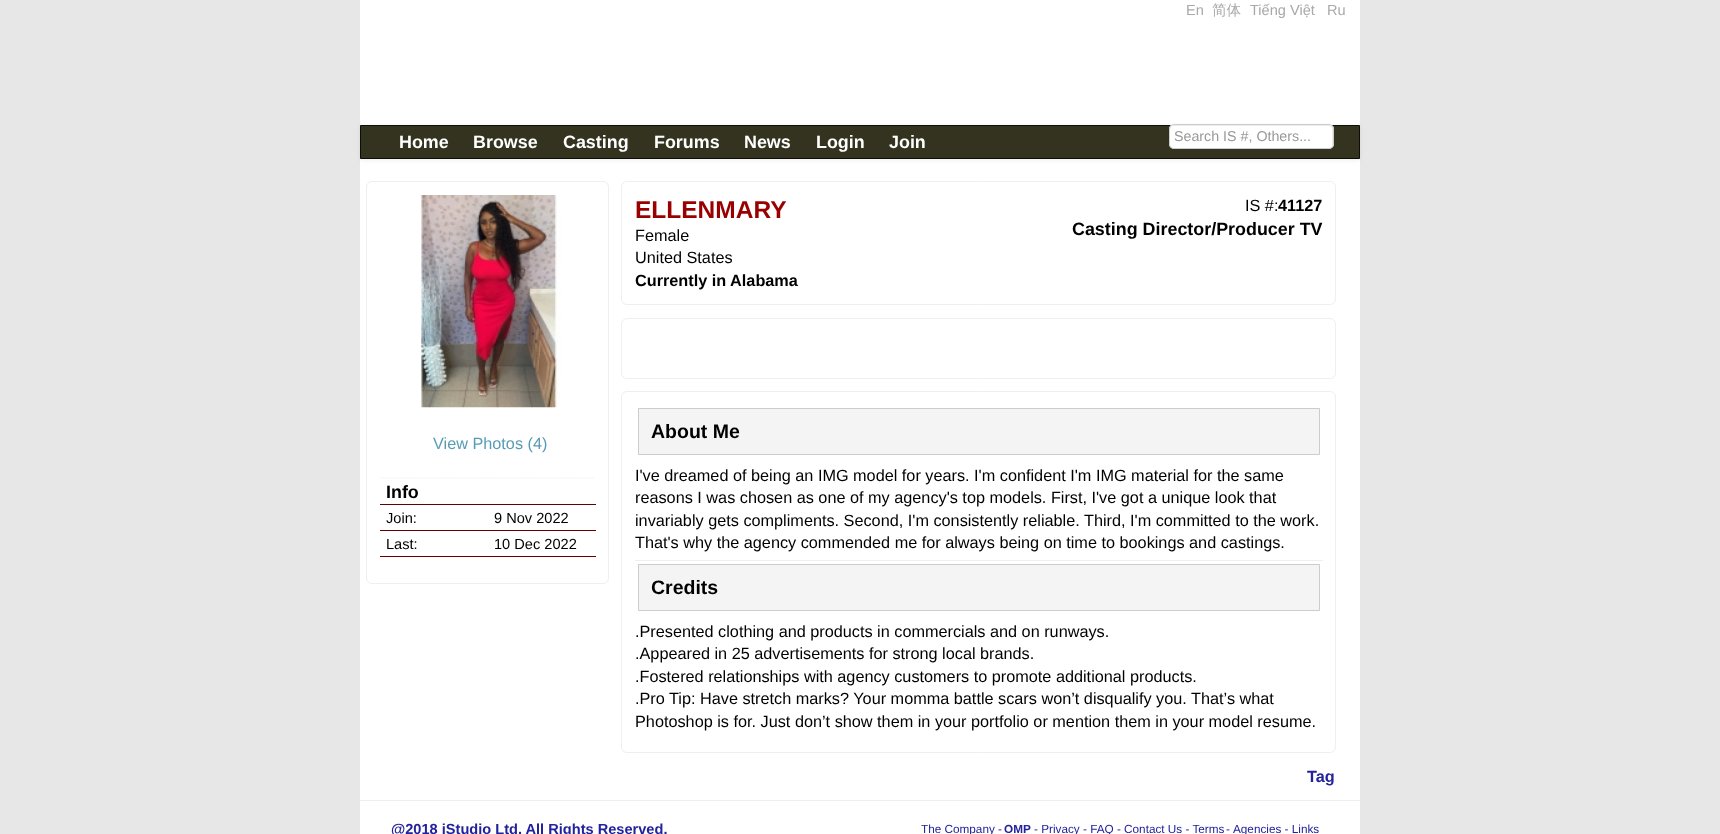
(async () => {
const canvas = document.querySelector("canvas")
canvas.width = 1720
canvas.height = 834
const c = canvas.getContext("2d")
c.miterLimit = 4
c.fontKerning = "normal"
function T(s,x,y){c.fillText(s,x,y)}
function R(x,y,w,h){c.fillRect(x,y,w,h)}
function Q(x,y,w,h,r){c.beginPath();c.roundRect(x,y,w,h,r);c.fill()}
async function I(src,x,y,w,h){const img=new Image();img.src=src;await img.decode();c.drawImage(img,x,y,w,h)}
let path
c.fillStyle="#e7e7e7"
R(0,0,1720,834)
c.fillStyle="#fff"
R(360,0,1000,834)
c.font="14.6px Liberation Sans"
c.fillStyle="#a9a9a9"
T("En",1186,15)
c.font="500 14.6px WenQuanYi Zen Hei"
T("简体",1212,15)
c.font="14.6px Liberation Sans"
T("Tiếng Việt",1250,15)
T("Ru",1327,15)
c.fillStyle="#00000012"
c.filter="blur(2.5px)"
c.beginPath()
c.rect(360,126,1000,34)
c.fill()
c.filter="none"
c.fillStyle="#33331f"
c.beginPath()
c.rect(360.5,125.5,999,33)
c.fill()
c.strokeStyle="#0d0d08"
c.stroke()
c.font="bold 17.9px Liberation Sans"
c.fillStyle="#fff"
T("Home",399,148)
T("Browse",473,148)
T("Casting",563,148)
T("Forums",654,148)
T("News",744,148)
T("Login",816,148)
T("Join",889,148)
Q(1169,124,165,25,5)
c.fillStyle="#ececec"
path = new Path2D("M1174 126h155c4 0 3 7 3 9v12c0-1 1-2 1-3v-15c0-2-2-4-4-4h-155c-2 0-4 2-4 4v1c0-2 2-4 4-4z")
c.fill(path)
c.beginPath()
c.roundRect(1169.5,124.5,164,24,4.5)
c.strokeStyle="#ccc"
c.stroke()
c.font="14.25px Liberation Sans"
c.fillStyle="#999"
T("Search IS #, Others...",1174,141)
c.beginPath()
c.roundRect(621.5,181.5,714,123,5.5)
c.strokeStyle="#efefef"
c.stroke()
c.font="bold 24.5px Liberation Sans"
c.fillStyle="#900"
T("ELLENMARY",635,218)
c.font="16.25px Liberation Sans"
c.fillStyle="#000"
T("Female",635,241)
T("United States",635,263)
c.font="bold 16.25px Liberation Sans"
T("Currently in Alabama",635,286)
c.font="16.25px Liberation Sans"
T("IS #:",1245,211)
c.font="bold 16.25px Liberation Sans"
T("41127",1278,211)
c.font="bold 17.9px Liberation Sans"
T("Casting Director/Producer TV",1072,235)
c.beginPath()
c.roundRect(621.5,318.5,714,60,5.5)
c.stroke()
c.beginPath()
c.roundRect(366.5,181.5,242,402,5.5)
c.stroke()
await I("1.png",420,195,141,213)
c.font="16.25px Liberation Sans"
c.fillStyle="#599cb3"
T("View Photos (4)",433,449)
path = new Path2D("M380 478h215")
c.lineWidth=1.2
c.setLineDash([1.25,1.25])
c.stroke(path)
c.fillStyle="#600"
R(380,504,216,1)
c.font="bold 17.9px Liberation Sans"
c.fillStyle="#000"
T("Info",386,498)
c.font="14.6px Liberation Sans"
T("Join:",386,523)
c.fillStyle="#600"
R(380,530,216,1)
c.fillStyle="#000"
T("9 Nov 2022",494,523)
T("Last:",386,549)
c.fillStyle="#600"
R(380,556,216,1)
c.fillStyle="#000"
T("10 Dec 2022",494,549)
c.beginPath()
c.roundRect(621.5,391.5,714,361,5.5)
c.lineWidth=1
c.setLineDash([])
c.stroke()
c.fillStyle="#f4f4f5"
c.beginPath()
c.rect(638.5,408.5,681,46)
c.fill()
c.strokeStyle="#ccc"
c.stroke()
c.font="bold 19.5px Liberation Sans"
c.fillStyle="#000"
T("About Me",651,438)
c.font="16.25px Liberation Sans"
T("I've dreamed of being an IMG model for years. I'm confident I'm IMG material for the same",635,481)
T("reasons I was chosen as one of my agency's top models. First, I've got a unique look that",635,503)
T("invariably gets compliments. Second, I'm consistently reliable. Third, I'm committed to the work.",635,526)
T("That's why the agency commended me for always being on time to bookings and castings.",635,548)
c.fillStyle="#efefef"
R(635,560,688,1)
c.fillStyle="#f4f4f5"
c.beginPath()
c.rect(638.5,564.5,681,46)
c.fill()
c.stroke()
c.font="bold 19.5px Liberation Sans"
c.fillStyle="#000"
T("Credits",651,594)
c.font="16.25px Liberation Sans"
T(".Presented clothing and products in commercials and on runways.",635,637)
T(".Appeared in 25 advertisements for strong local brands.",635,659)
T(".Fostered relationships with agency customers to promote additional products.",635,682)
T(".Pro Tip: Have stretch marks? Your momma battle scars won’t disqualify you. That’s what",635,704)
T("Photoshop is for. Just don’t show them in your portfolio or mention them in your model resume.",635,727)
c.font="bold 16.25px Liberation Sans"
c.fillStyle="#22229c"
T("Tag",1307,782)
c.fillStyle="#efefef"
R(360,800,1000,1)
c.font="bold 14.6px Liberation Sans"
c.fillStyle="#22229c"
T("@2018 iStudio Ltd. All Rights Reserved.",391,834)
c.font="11.75px Liberation Sans"
T("The Company -",921,833)
c.font="bold 11.75px Liberation Sans"
T("OMP",1004,833)
c.font="11.75px Liberation Sans"
T("- Privacy - FAQ - Contact Us - Terms",1034,833)
T("-",1226,833)
T("Agencies - Links",1233,833)
})()
